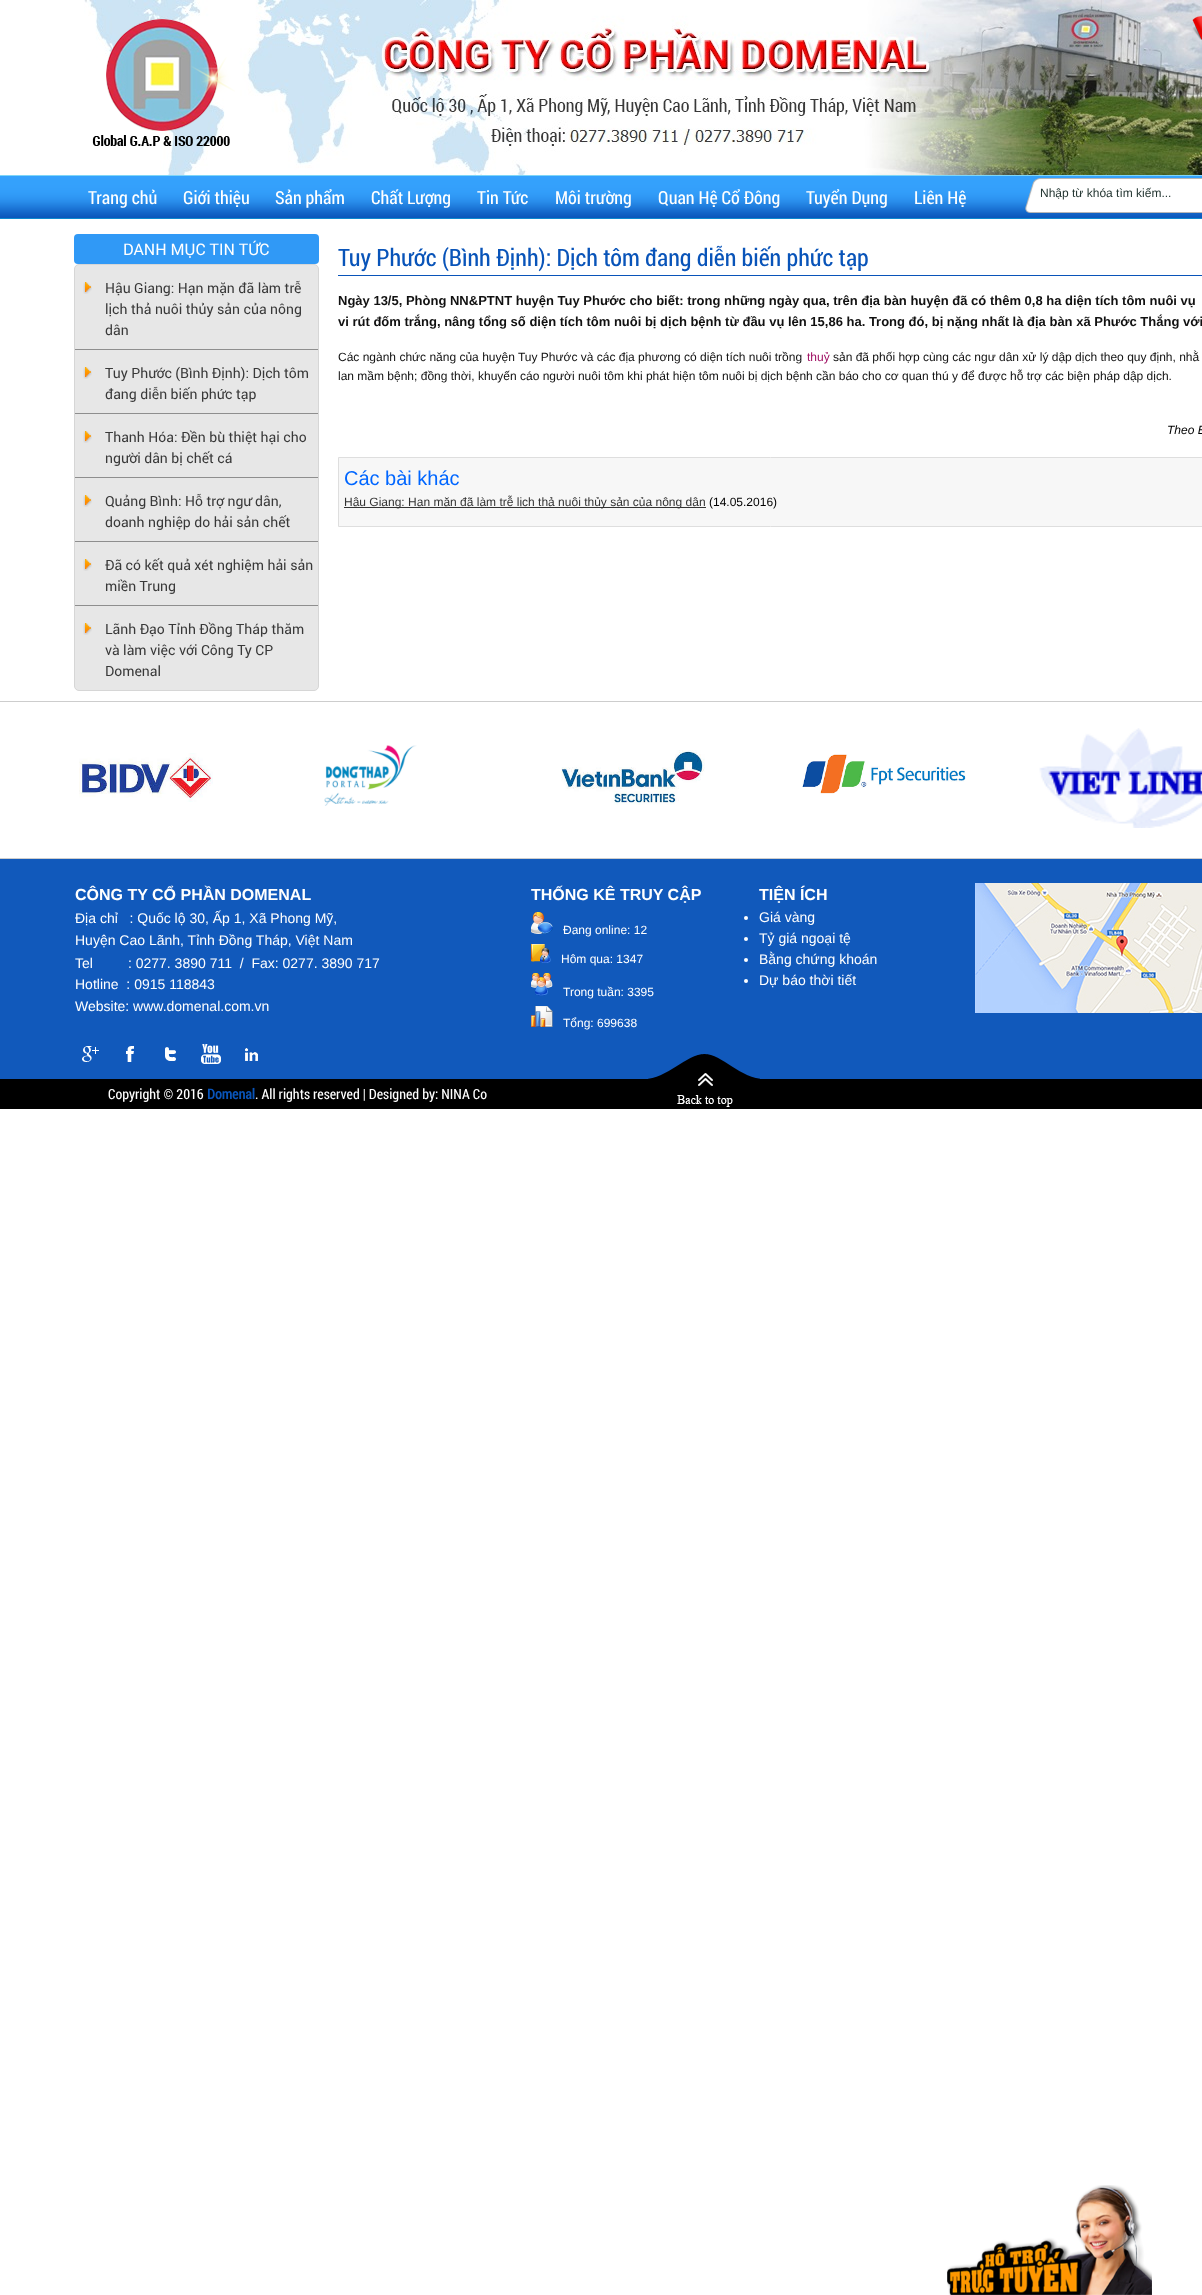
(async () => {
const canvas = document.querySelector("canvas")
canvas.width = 1202
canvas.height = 2295
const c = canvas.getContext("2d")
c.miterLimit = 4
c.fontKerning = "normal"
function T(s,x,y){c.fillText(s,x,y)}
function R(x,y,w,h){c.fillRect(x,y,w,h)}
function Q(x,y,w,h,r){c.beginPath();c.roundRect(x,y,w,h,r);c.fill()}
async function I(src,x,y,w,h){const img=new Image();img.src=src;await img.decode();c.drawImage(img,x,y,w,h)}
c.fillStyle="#fff"
R(0,0,1202,2295)
await I("1.png",84,0,1118,175)
await I("2.png",92,19,138,127)
await I("3.png",1192,16,10,24)
await I("4.png",191,57,44,44)
await I("5.png",0,175,1202,44)
c.font="18px Roboto Condensed"
T("Trang chủ",88,204)
T("Giới thiệu",183,204)
T("Sản phẩm",275,204)
T("Chất Lượng",371,204)
T("Tin Tức",477,204)
T("Môi trường",555,204)
T("Quan Hệ Cổ Đông",658,204)
T("Tuyển Dụng",806,204)
T("Liên Hệ",914,204)
await I("6.png",1025,178,177,35)
c.font="12px Liberation Sans"
c.fillStyle="#243632"
T("Nhập từ khóa tìm kiếm...",1040,197)
c.fillStyle="#3099f6"
Q(74,234,245,30,4)
c.font="16px Roboto"
c.fillStyle="#fff"
T("DANH MỤC TIN TỨC",123,255)
c.fillStyle="#e7e7e7"
c.beginPath()
c.roundRect(74.5,264.5,244,426,4.5)
c.fill()
c.strokeStyle="#d6d6d6"
c.stroke()
await I("7.png",83,282,9,12)
c.fillStyle="#8e8e8e"
R(75,349,243,1)
c.font="14px Roboto"
c.fillStyle="#393939"
T("Hậu Giang: Hạn mặn đã làm trễ",105,293)
T("lịch thả nuôi thủy sản của nông",105,314)
T("dân",105,335)
await I("7.png",83,367,9,12)
c.fillStyle="#8e8e8e"
R(75,413,243,1)
c.fillStyle="#393939"
T("Tuy Phước (Bình Định): Dịch tôm",105,378)
T("đang diễn biến phức tạp",105,399)
await I("7.png",83,431,9,12)
c.fillStyle="#8e8e8e"
R(75,477,243,1)
c.fillStyle="#393939"
T("Thanh Hóa: Đền bù thiệt hại cho",105,442)
T("người dân bị chết cá",105,463)
await I("7.png",83,495,9,12)
c.fillStyle="#8e8e8e"
R(75,541,243,1)
c.fillStyle="#393939"
T("Quảng Bình: Hỗ trợ ngư dân,",105,506)
T("doanh nghiệp do hải sản chết",105,527)
await I("7.png",83,559,9,12)
c.fillStyle="#8e8e8e"
R(75,605,243,1)
c.fillStyle="#393939"
T("Đã có kết quả xét nghiệm hải sản",105,570)
T("miền Trung",105,591)
await I("7.png",83,623,9,12)
T("Lãnh Đạo Tỉnh Đồng Tháp thăm",105,634)
T("và làm việc với Công Ty CP",105,655)
T("Domenal",105,676)
c.fillStyle="#0954b9"
R(338,275,864,1)
c.font="24px Roboto Condensed"
T("Tuy Phước (Bình Định): Dịch tôm đang diễn biến phức tạp",338,266)
c.font="bold 13px Liberation Sans"
c.fillStyle="#111"
T("Ngày 13/5, Phòng NN&PTNT huyện Tuy Phước cho biết: trong những ngày qua, trên địa bàn huyện đã có thêm 0,8 ha diện tích tôm nuôi vụ",338,305)
T("vi rút đốm trắng, nâng tổng số diện tích tôm nuôi bị dịch bệnh từ đầu vụ lên 15,86 ha. Trong đó, bị nặng nhất là địa bàn xã Phước Thắng với",338,326)
c.font="12px Liberation Sans"
T("Các ngành chức năng của huyện Tuy Phước và các địa phương có diện tích nuôi trồng",338,361)
c.fillStyle="#a01164"
T("thuỷ",807,361)
c.fillStyle="#111"
T("sản đã phối hợp cùng các ngư dân xử lý dập dịch theo quy định, nhằ",833,361)
T("lan mầm bệnh; đồng thời, khuyến cáo người nuôi tôm khi phát hiện tôm nuôi bị dịch bệnh cần báo cho cơ quan thú y để được hỗ trợ các biện pháp dập dịch.",338,380)
c.font="italic 12px Liberation Sans"
c.fillStyle="#000"
T("Theo B",1167,434)
c.fillStyle="#f7f7f7"
c.beginPath()
c.rect(338.5,457.5,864,69)
c.fill()
c.strokeStyle="#dedede"
c.stroke()
c.font="20px Liberation Sans"
c.fillStyle="#06f"
T("Các bài khác",344,485)
c.fillStyle="#333"
R(344,507,362,1)
c.font="12px Liberation Sans"
T("Hậu Giang: Hạn mặn đã làm trễ lịch thả nuôi thủy sản của nông dân",344,506)
c.fillStyle="#000"
T("(14.05.2016)",709,506)
c.fillStyle="#cdcdcd"
R(0,701,1202,1)
R(0,858,1202,1)
await I("8.png",79,753,134,49)
await I("9.png",324,745,93,61)
await I("10.png",561,750,144,55)
await I("11.png",802,754,164,40)
await I("12.png",1039,728,163,100)
c.fillStyle="#1159bb"
R(0,859,1202,220)
c.font="bold 16px Liberation Sans"
c.fillStyle="#fff"
T("CÔNG TY CỔ PHẦN DOMENAL",75,900)
c.font="14px Liberation Sans"
T("Địa chỉ   : Quốc lộ 30, Ấp 1, Xã Phong Mỹ,",75,923)
T("Huyện Cao Lãnh, Tỉnh Đồng Tháp, Việt Nam",75,945)
T("Tel         : 0277. 3890 711  /  Fax: 0277. 3890 717",75,968)
T("Hotline  : 0915 118843",75,989)
T("Website: www.domenal.com.vn",75,1011)
await I("13.png",82,1046,17,16)
await I("14.png",126,1046,8,16)
await I("15.png",165,1047,11,14)
await I("16.png",201,1044,20,20)
await I("17.png",245,1048,13,13)
c.font="bold 16px Liberation Sans"
T("THỐNG KÊ TRUY CẬP",531,900)
await I("18.png",531,912,22,22)
c.font="12px Liberation Sans"
T("Đang online: 12",563,934)
await I("19.png",531,944,20,19)
T("Hôm qua: 1347",561,963)
await I("20.png",531,973,22,23)
T("Trong tuần: 3395",563,996)
await I("21.png",531,1006,22,21)
T("Tổng: 699638",563,1027)
c.font="bold 16px Liberation Sans"
T("TIỆN ÍCH",759,900)
c.beginPath()
c.arc(746,918,2,0,7)
c.fill()
c.font="14px Liberation Sans"
T("Giá vàng",759,922)
c.beginPath()
c.arc(746,939,2,0,7)
c.fill()
T("Tỷ giá ngoại tệ",759,943)
c.beginPath()
c.arc(746,960,2,0,7)
c.fill()
T("Bằng chứng khoán",759,964)
c.beginPath()
c.arc(746,981,2,0,7)
c.fill()
T("Dự báo thời tiết",759,985)
await I("22.png",975,883,227,130)
c.fillStyle="#000"
R(0,1079,1202,30)
c.font="14px Roboto Condensed"
c.fillStyle="#fff"
T("Copyright © 2016",108,1099)
c.font="bold 14px Roboto Condensed"
c.fillStyle="#0954b9"
T("Domenal",207,1099)
c.font="14px Roboto Condensed"
c.fillStyle="#fff"
T(". All rights reserved | Designed by: NINA Co",255,1099)
await I("23.png",648,1054,112,53)
await I("24.png",947,2185,205,110)
})()
